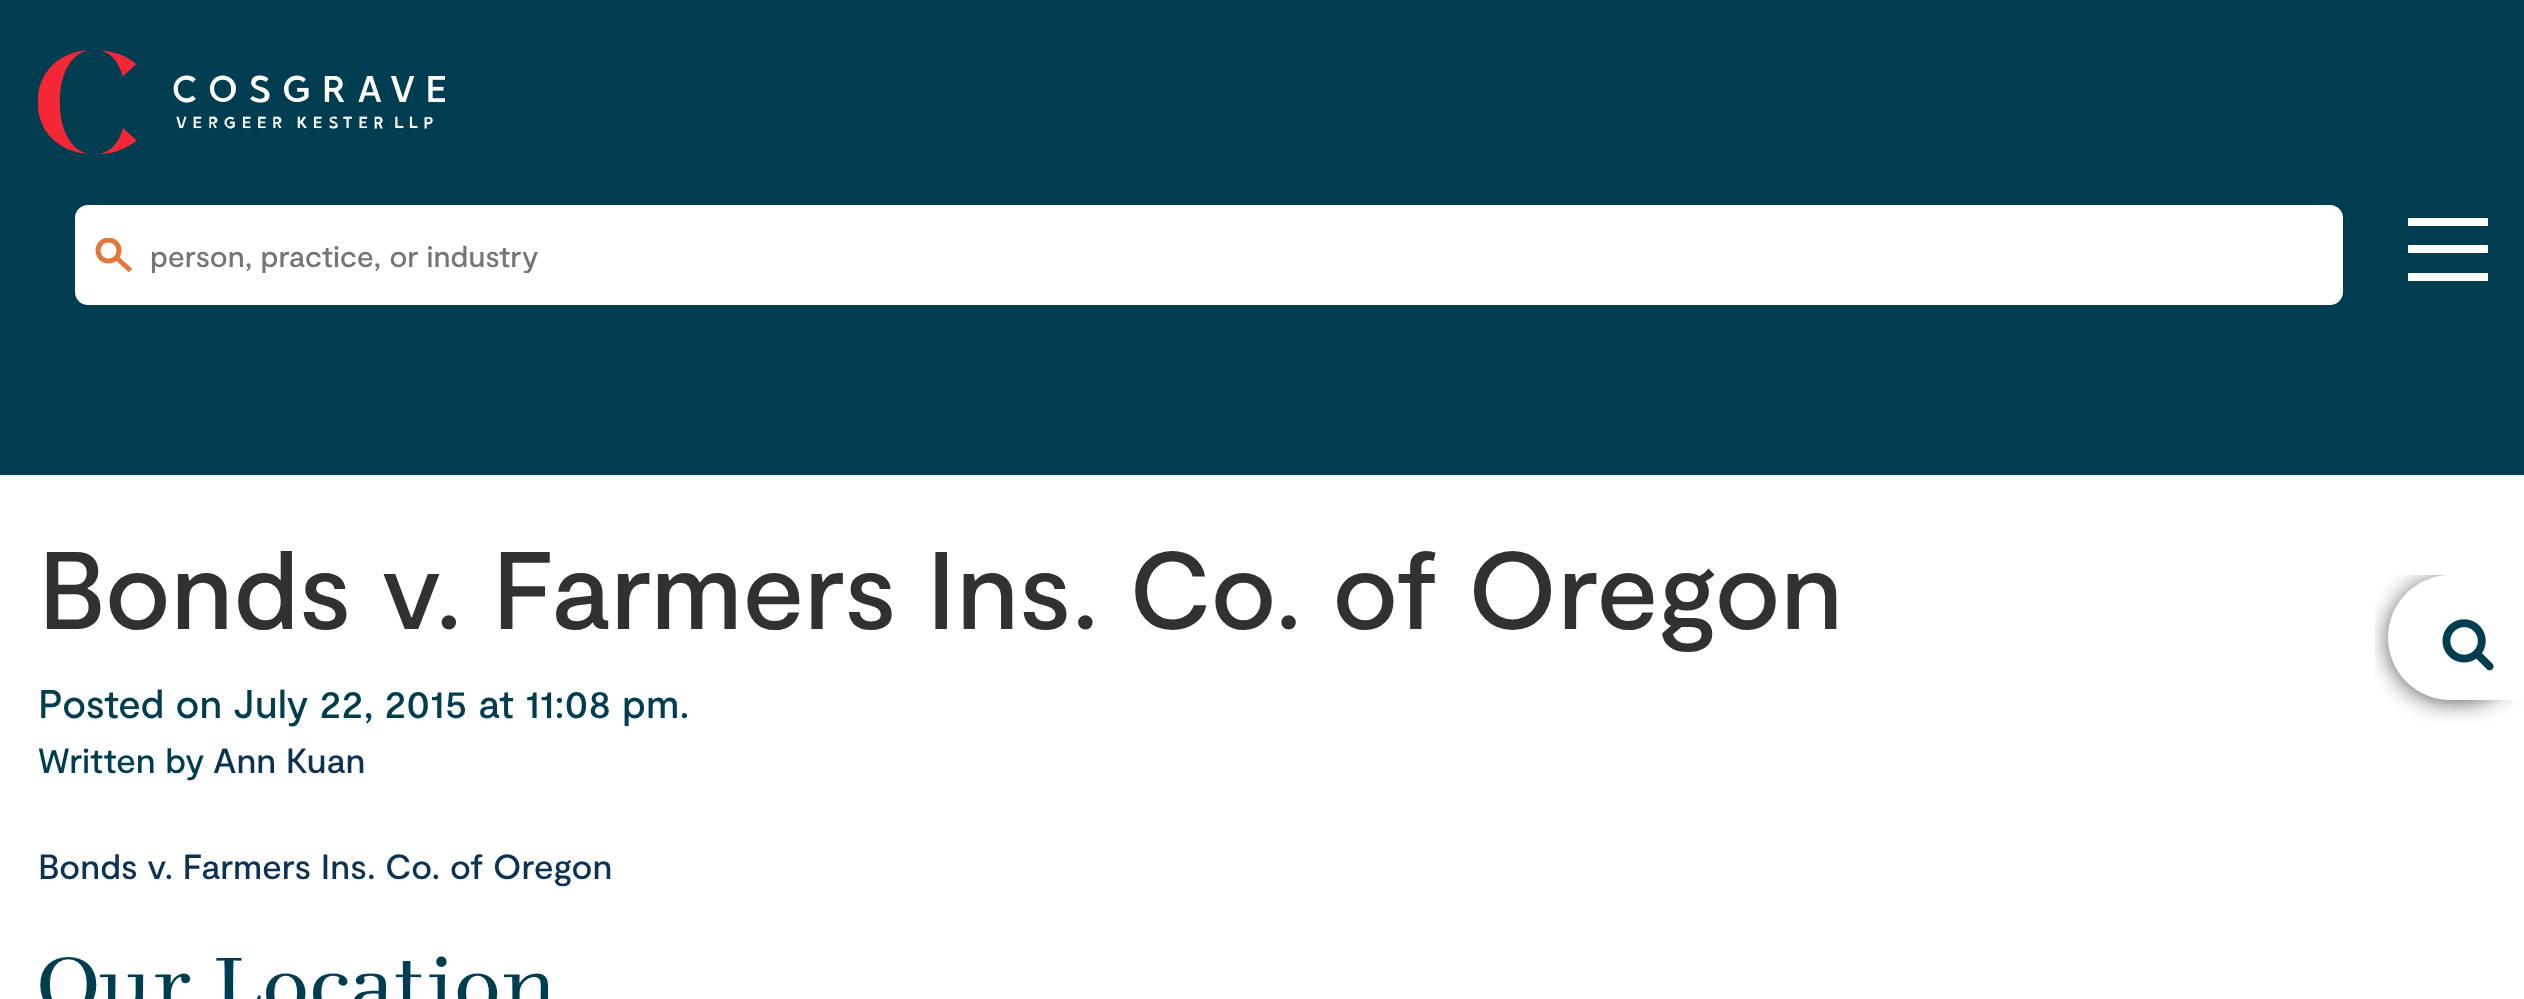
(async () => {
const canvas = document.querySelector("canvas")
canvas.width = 2524
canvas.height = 999
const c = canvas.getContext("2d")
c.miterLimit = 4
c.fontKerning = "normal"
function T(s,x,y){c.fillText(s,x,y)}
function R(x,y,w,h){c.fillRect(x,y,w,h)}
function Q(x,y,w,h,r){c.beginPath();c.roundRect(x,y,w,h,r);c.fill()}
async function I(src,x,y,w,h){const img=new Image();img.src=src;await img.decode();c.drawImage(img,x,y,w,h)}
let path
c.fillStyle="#fff"
R(0,0,2524,999)
c.fillStyle="#003d50"
R(0,0,2524,475)
await I("1.png",38,50,407,104)
c.fillStyle="#fff"
Q(75,205,2268,100,13)
path = new Path2D("M108.5 250.5l22 20")
c.strokeStyle="#e37738"
c.lineWidth=5
c.stroke(path)
c.beginPath()
c.arc(108.5,250.5,10.5,0,7)
c.fill()
c.save()
c.beginPath()
c.rect(95,238,38,35)
c.clip()
c.beginPath()
c.arc(108.5,250.5,10.5,0,7)
c.stroke()
c.restore()
c.save()
c.beginPath()
c.rect(150,238,2168,35)
c.clip()
c.font="500 30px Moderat"
c.fillStyle="#757575"
T("person, practice, or industry",150,267)
c.restore()
R(2408,218,80,8)
R(2408,245,80,8)
R(2408,273,80,8)
c.save()
c.beginPath()
c.rect(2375,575,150,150)
c.clip()
c.fillStyle="#000000bf"
c.filter="blur(12.5px)"
c.beginPath()
c.roundRect(2390,580,133,120,60)
c.fill()
c.filter="none"
c.restore()
path = new Path2D("M2450.5 575h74.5v125h-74.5c-34.5 0-62.5-28-62.5-62.5c0-34.5 28-62.5 62.5-62.5z")
c.fill(path)
await I("2.png",2442,619,52,52)
c.font="500 110px Moderat"
c.fillStyle="#313130"
T("Bonds v. Farmers Ins. Co. of Oregon",38,629)
c.font="500 40px Moderat"
c.fillStyle="#003d50"
T("Posted on July 22, 2015 at 11:08 pm.",38,718)
c.font="500 35px Moderat"
T("Written by",38,773)
c.fillStyle="#0d3254"
T("Ann Kuan",213,773)
T("Bonds v. Farmers Ins. Co. of Oregon",38,879)
c.font="300 75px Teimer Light"
c.fillStyle="#003d50"
T("Our Location",38,1012)
})()
